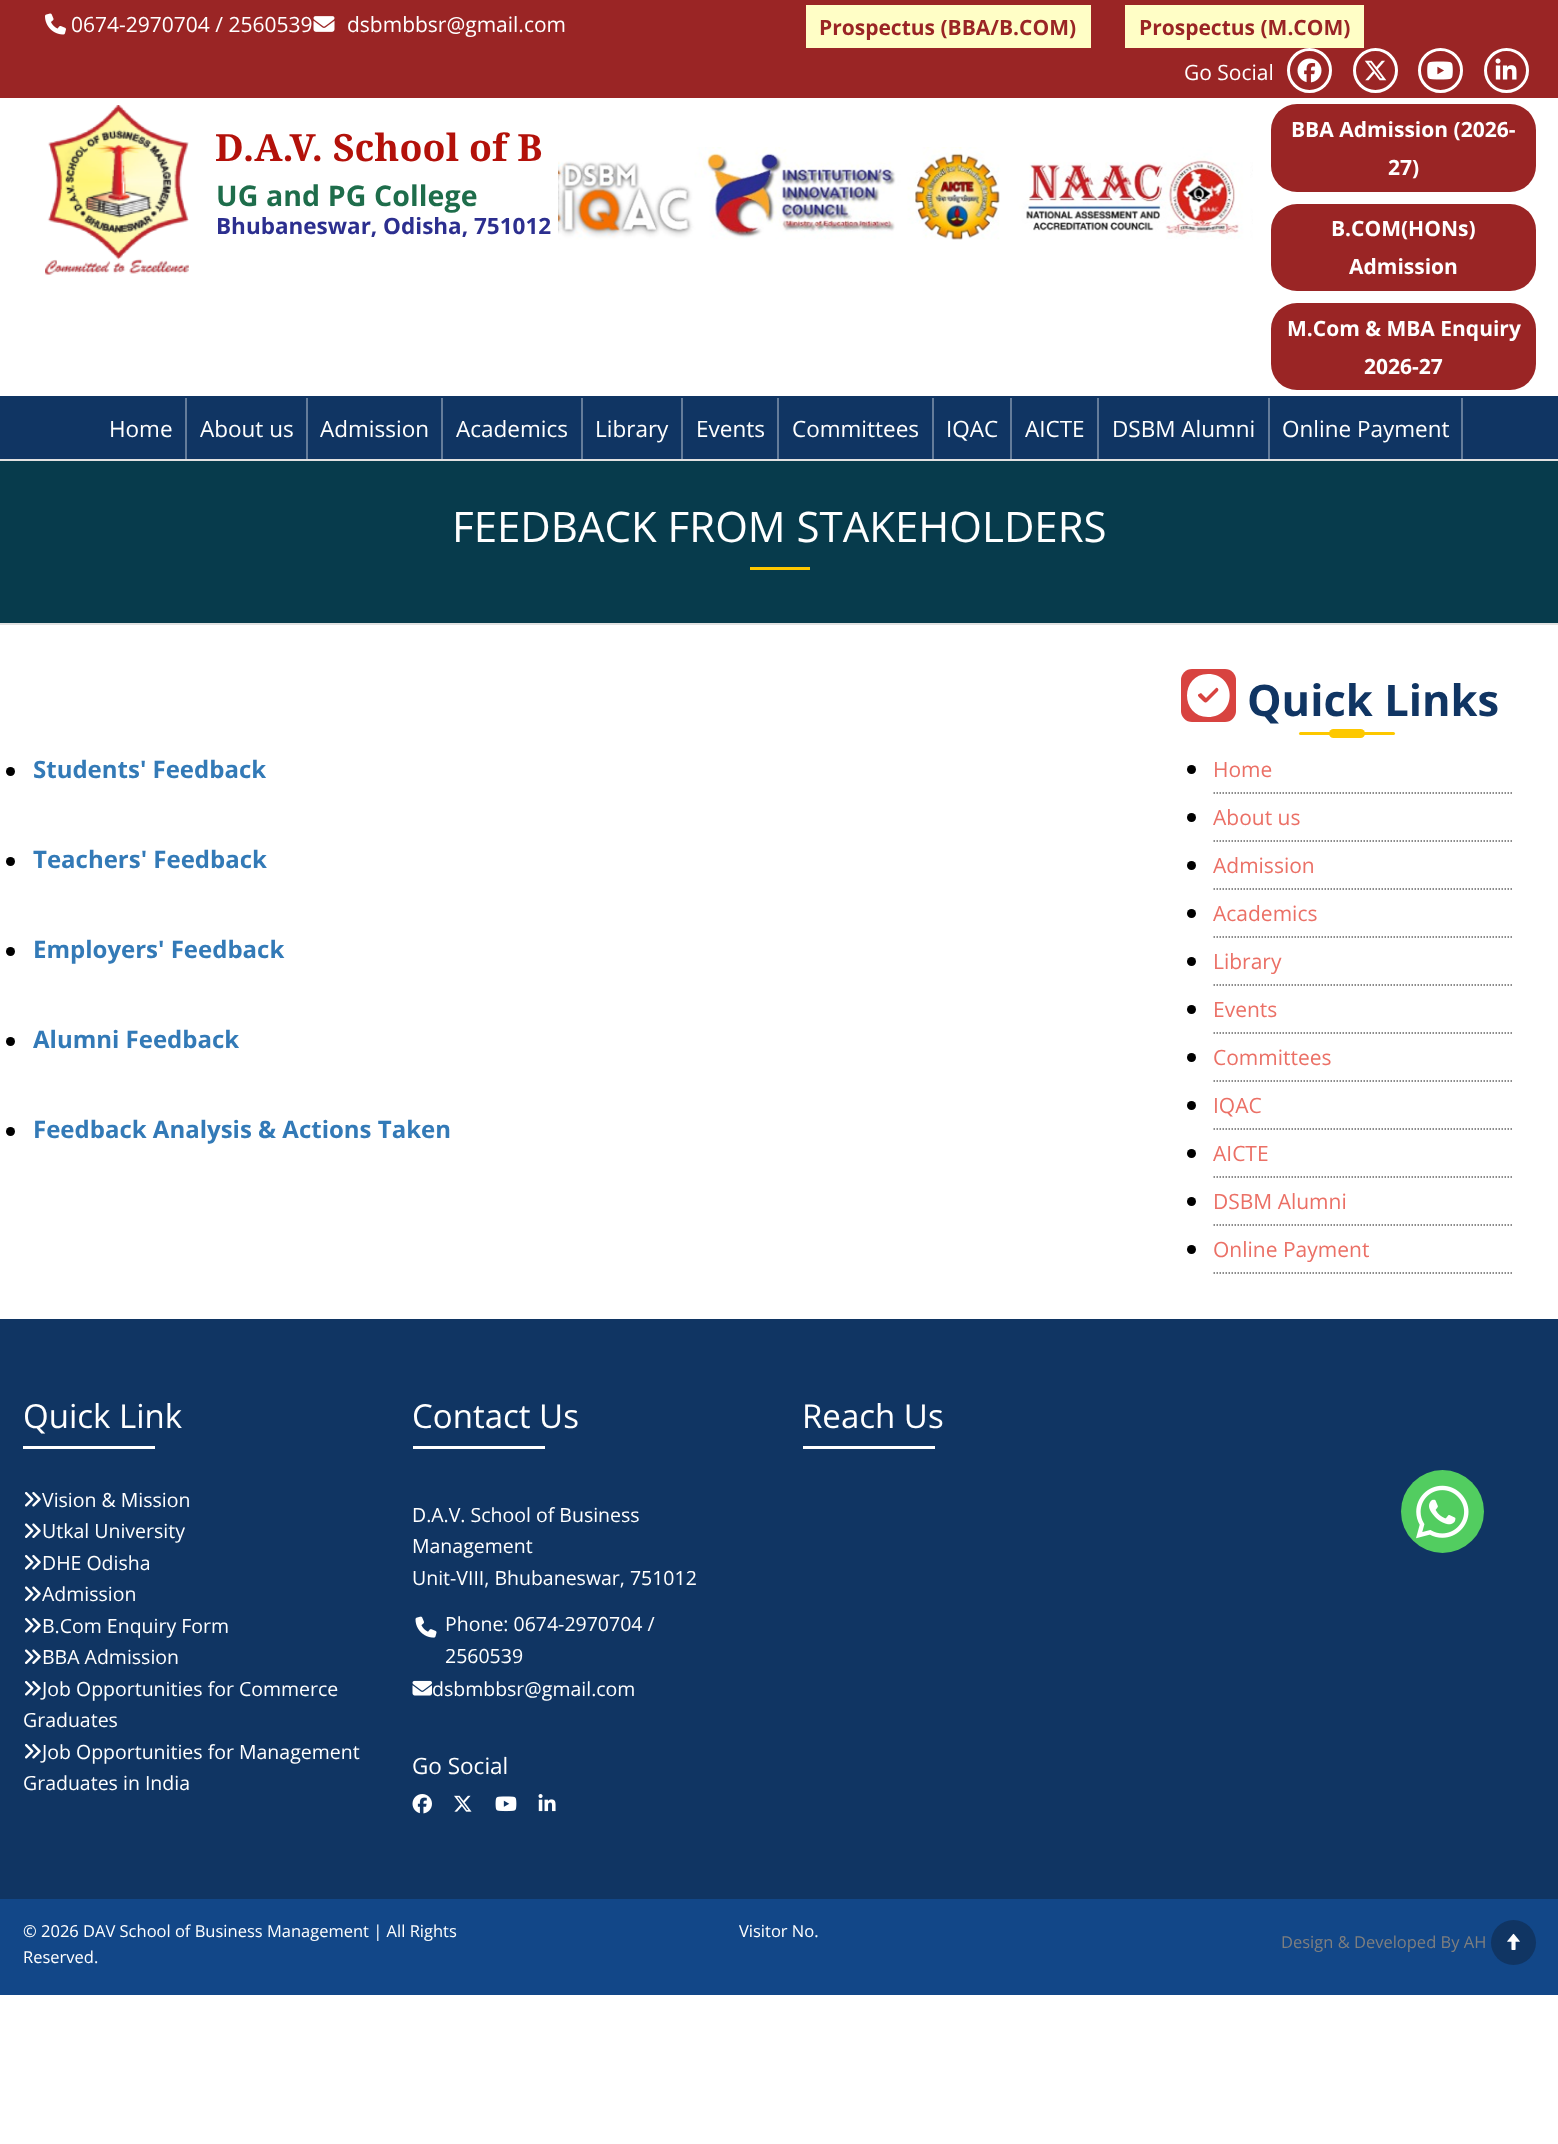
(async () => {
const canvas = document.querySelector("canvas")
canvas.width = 1558
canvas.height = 2144
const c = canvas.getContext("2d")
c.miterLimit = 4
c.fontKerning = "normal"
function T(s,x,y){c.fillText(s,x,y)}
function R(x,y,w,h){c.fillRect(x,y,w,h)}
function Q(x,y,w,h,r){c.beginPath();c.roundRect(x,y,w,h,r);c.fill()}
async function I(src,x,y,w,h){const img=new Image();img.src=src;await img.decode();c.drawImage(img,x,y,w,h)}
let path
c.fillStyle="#fff"
R(0,0,1558,2144)
c.fillStyle="#9a2525"
R(0,0,1558,98)
await I("1.png",45,13,21,22)
c.font="21px Open Sans"
c.fillStyle="#fff"
T("0674-2970704 / 2560539",71,32)
await I("2.png",313,16,22,16)
T("dsbmbbsr@gmail.com",347,32)
c.fillStyle="#fffec6"
R(806,5,285,43)
c.font="bold 21px Open Sans"
c.fillStyle="#9a2525"
T("Prospectus (BBA/B.COM)",819,35)
c.fillStyle="#fffec6"
R(1125,5,239,43)
c.fillStyle="#9a2525"
T("Prospectus (M.COM)",1139,35)
c.font="21px Open Sans"
c.fillStyle="#fff"
T("Go Social",1184,80)
c.beginPath()
c.arc(1309.5,70.5,21,0,7)
c.strokeStyle="#fff"
c.lineWidth=3
c.stroke()
await I("3.png",1297,58,25,25)
c.beginPath()
c.arc(1375.5,70.5,21,0,7)
c.stroke()
await I("4.png",1364,60,23,21)
c.beginPath()
c.arc(1440.5,70.5,21,0,7)
c.stroke()
await I("5.png",1427,61,26,19)
c.beginPath()
c.arc(1506.5,70.5,21,0,7)
c.stroke()
await I("6.png",1495,58,22,22)
await I("7.png",45,105,144,170)
c.letterSpacing="0.1px"
c.font="bold 37.5px Noto Serif"
c.fillStyle="#b3110a"
T("D.A.V. School of B",215,161)
await I("8.png",558,147,695,93)
c.font="bold 28.5px Open Sans"
c.fillStyle="#1e6d4b"
T("UG and PG College",216,206)
c.letterSpacing="0px"
c.font="bold 22.5px Open Sans"
c.fillStyle="#2c2f8f"
T("Bhubaneswar, Odisha, 751012",216,234)
c.fillStyle="#9a2525"
Q(1271,104,265,88,26)
c.font="bold 21px Open Sans"
c.fillStyle="#fff"
T("BBA Admission (2026-",1291,137)
T("27)",1388,175)
c.fillStyle="#9a2525"
Q(1271,204,265,87,26)
c.fillStyle="#fff"
T("B.COM(HONs)",1331,236)
T("Admission",1349,274)
c.fillStyle="#9a2525"
Q(1271,303,265,87,26)
c.fillStyle="#fff"
T("M.Com & MBA Enquiry",1287,336)
T("2026-27",1364,374)
c.fillStyle="#103563"
R(0,396,1558,63)
c.fillStyle="#647c9a"
R(1461,398,2,61)
R(1268,398,2,61)
R(1097,398,2,61)
R(1010,398,2,61)
R(932,398,2,61)
R(777,398,2,61)
R(681,398,2,61)
R(581,398,2,61)
R(441,398,2,61)
R(306,398,2,61)
R(185,398,2,61)
c.font="22.5px Open Sans"
c.fillStyle="#fff"
T("Home",109,437)
T("About us",200,437)
T("Admission",320,437)
T("Academics",456,437)
T("Library",595,437)
T("Events",696,437)
T("Committees",792,437)
T("IQAC",946,437)
T("AICTE",1025,437)
T("DSBM Alumni",1112,437)
T("Online Payment",1282,437)
c.fillStyle="#073b4c"
R(0,461,1558,162)
c.fillStyle="#e1e1e1"
R(0,459,1558,2)
R(0,623,1558,2)
c.font="42px Open Sans"
c.fillStyle="#fff"
T("FEEDBACK FROM STAKEHOLDERS",452,542)
c.fillStyle="#fdc800"
R(750,567,60,3)
c.fillStyle="#000"
c.beginPath()
c.arc(10.5,771.5,4.5,0,7)
c.fill()
c.font="bold 24px Open Sans"
c.fillStyle="#337ab7"
T("Students' Feedback",33,778)
c.fillStyle="#000"
c.beginPath()
c.arc(10.5,861.5,4.5,0,7)
c.fill()
c.fillStyle="#337ab7"
T("Teachers' Feedback",33,868)
c.fillStyle="#000"
c.beginPath()
c.arc(10.5,951.5,4.5,0,7)
c.fill()
c.fillStyle="#337ab7"
T("Employers' Feedback",33,958)
c.fillStyle="#000"
c.beginPath()
c.arc(10.5,1041.5,4.5,0,7)
c.fill()
c.fillStyle="#337ab7"
T("Alumni Feedback",33,1048)
c.fillStyle="#000"
c.beginPath()
c.arc(10.5,1131.5,4.5,0,7)
c.fill()
c.fillStyle="#337ab7"
T("Feedback Analysis & Actions Taken",33,1138)
c.fillStyle="#d84340"
Q(1181,669,55,53,11)
c.fillStyle="#fff"
path = new Path2D("M1208 717c29 0 29-43 0-43c-28 0-28 43 0 43zm10-26l-9 9c-4 4-4 3-8-1c-1-1-5-4-2-5l2-1l5 5l10-10c2-1 3 2 2 3z")
c.fill(path)
c.font="bold 43.5px Open Sans"
c.fillStyle="#103563"
T("Quick Links",1247,716)
c.fillStyle="#fdc800"
Q(1329,729,36,9,4.5)
Q(1299,732,96,3,1.5)
path = new Path2D("M1213.5 793h300")
c.strokeStyle="#666"
c.lineWidth=1.5
c.setLineDash([1.5,1.5])
c.stroke(path)
c.fillStyle="#000"
c.beginPath()
c.arc(1191.5,769.5,4.5,0,7)
c.fill()
c.font="21px Open Sans"
c.fillStyle="#eb7066"
T("Home",1213,777)
path = new Path2D("M1213.5 841h300")
c.stroke(path)
c.fillStyle="#000"
c.beginPath()
c.arc(1191.5,817.5,4.5,0,7)
c.fill()
c.fillStyle="#eb7066"
T("About us",1213,825)
path = new Path2D("M1213.5 889h300")
c.stroke(path)
c.fillStyle="#000"
c.beginPath()
c.arc(1191.5,865.5,4.5,0,7)
c.fill()
c.fillStyle="#eb7066"
T("Admission",1213,873)
path = new Path2D("M1213.5 937h300")
c.stroke(path)
c.fillStyle="#000"
c.beginPath()
c.arc(1191.5,913.5,4.5,0,7)
c.fill()
c.fillStyle="#eb7066"
T("Academics",1213,921)
path = new Path2D("M1213.5 985h300")
c.stroke(path)
c.fillStyle="#000"
c.beginPath()
c.arc(1191.5,961.5,4.5,0,7)
c.fill()
c.fillStyle="#eb7066"
T("Library",1213,969)
path = new Path2D("M1213.5 1033h300")
c.stroke(path)
c.fillStyle="#000"
c.beginPath()
c.arc(1191.5,1009.5,4.5,0,7)
c.fill()
c.fillStyle="#eb7066"
T("Events",1213,1017)
path = new Path2D("M1213.5 1081h300")
c.stroke(path)
c.fillStyle="#000"
c.beginPath()
c.arc(1191.5,1057.5,4.5,0,7)
c.fill()
c.fillStyle="#eb7066"
T("Committees",1213,1065)
path = new Path2D("M1213.5 1129h300")
c.stroke(path)
c.fillStyle="#000"
c.beginPath()
c.arc(1191.5,1105.5,4.5,0,7)
c.fill()
c.fillStyle="#eb7066"
T("IQAC",1213,1113)
path = new Path2D("M1213.5 1177h300")
c.stroke(path)
c.fillStyle="#000"
c.beginPath()
c.arc(1191.5,1153.5,4.5,0,7)
c.fill()
c.fillStyle="#eb7066"
T("AICTE",1213,1161)
path = new Path2D("M1213.5 1225h300")
c.stroke(path)
c.fillStyle="#000"
c.beginPath()
c.arc(1191.5,1201.5,4.5,0,7)
c.fill()
c.fillStyle="#eb7066"
T("DSBM Alumni",1213,1209)
path = new Path2D("M1213.5 1273h300")
c.stroke(path)
c.fillStyle="#000"
c.beginPath()
c.arc(1191.5,1249.5,4.5,0,7)
c.fill()
c.fillStyle="#eb7066"
T("Online Payment",1213,1257)
c.fillStyle="#103563"
R(0,1319,1558,580)
c.font="33px Open Sans"
c.fillStyle="#fff"
T("Quick Link",23,1428)
R(23,1446,132,3)
await I("9.png",25,1491,16,16)
c.font="19.5px Open Sans"
T("Vision & Mission",42,1507)
await I("10.png",24,1523,17,15)
T("Utkal University",42,1538)
await I("9.png",25,1554,16,16)
T("DHE Odisha",42,1570)
await I("10.png",24,1586,17,15)
T("Admission",42,1601)
await I("9.png",25,1617,16,16)
T("B.Com Enquiry Form",42,1633)
await I("10.png",24,1649,17,15)
T("BBA Admission",42,1664)
T("Job Opportunities for Commerce",42,1696)
await I("9.png",25,1680,16,16)
T("Graduates",23,1727)
T("Job Opportunities for Management",42,1759)
await I("9.png",25,1743,16,16)
T("Graduates in India",23,1790)
c.font="33px Open Sans"
T("Contact Us",412,1428)
R(413,1446,132,3)
c.font="19.5px Open Sans"
T("D.A.V. School of Business",412,1522)
T("Management",412,1553)
T("Unit-VIII, Bhubaneswar, 751012",412,1585)
await I("11.png",415,1616,22,22)
T("Phone: 0674-2970704 /",445,1631)
T("2560539",445,1663)
await I("12.png",412,1680,20,16)
T("dsbmbbsr@gmail.com",432,1696)
c.font="22.5px Open Sans"
T("Go Social",412,1774)
await I("13.png",412,1794,20,20)
await I("14.png",454,1795,18,17)
await I("15.png",495,1796,22,16)
await I("16.png",538,1794,18,18)
c.font="33px Open Sans"
T("Reach Us",802,1428)
R(803,1446,132,3)
c.fillStyle="#124788"
R(0,1899,1558,96)
c.font="16.5px Open Sans"
c.fillStyle="#fff"
T("© 2026 DAV School of Business Management | All Rights",23,1937)
T("Reserved.",23,1963)
T("Visitor No.",739,1937)
c.fillStyle="#7f7f7f"
T("Design & Developed By AH",1281,1948)
c.fillStyle="#103563"
c.beginPath()
c.arc(1513.5,1942.5,22.5,0,7)
c.fill()
await I("17.png",1507,1933,13,17)
c.fillStyle="#52cd60"
c.beginPath()
c.arc(1442.5,1511.5,41.5,0,7)
c.fill()
await I("18.png",1416,1485,53,54)
})()
